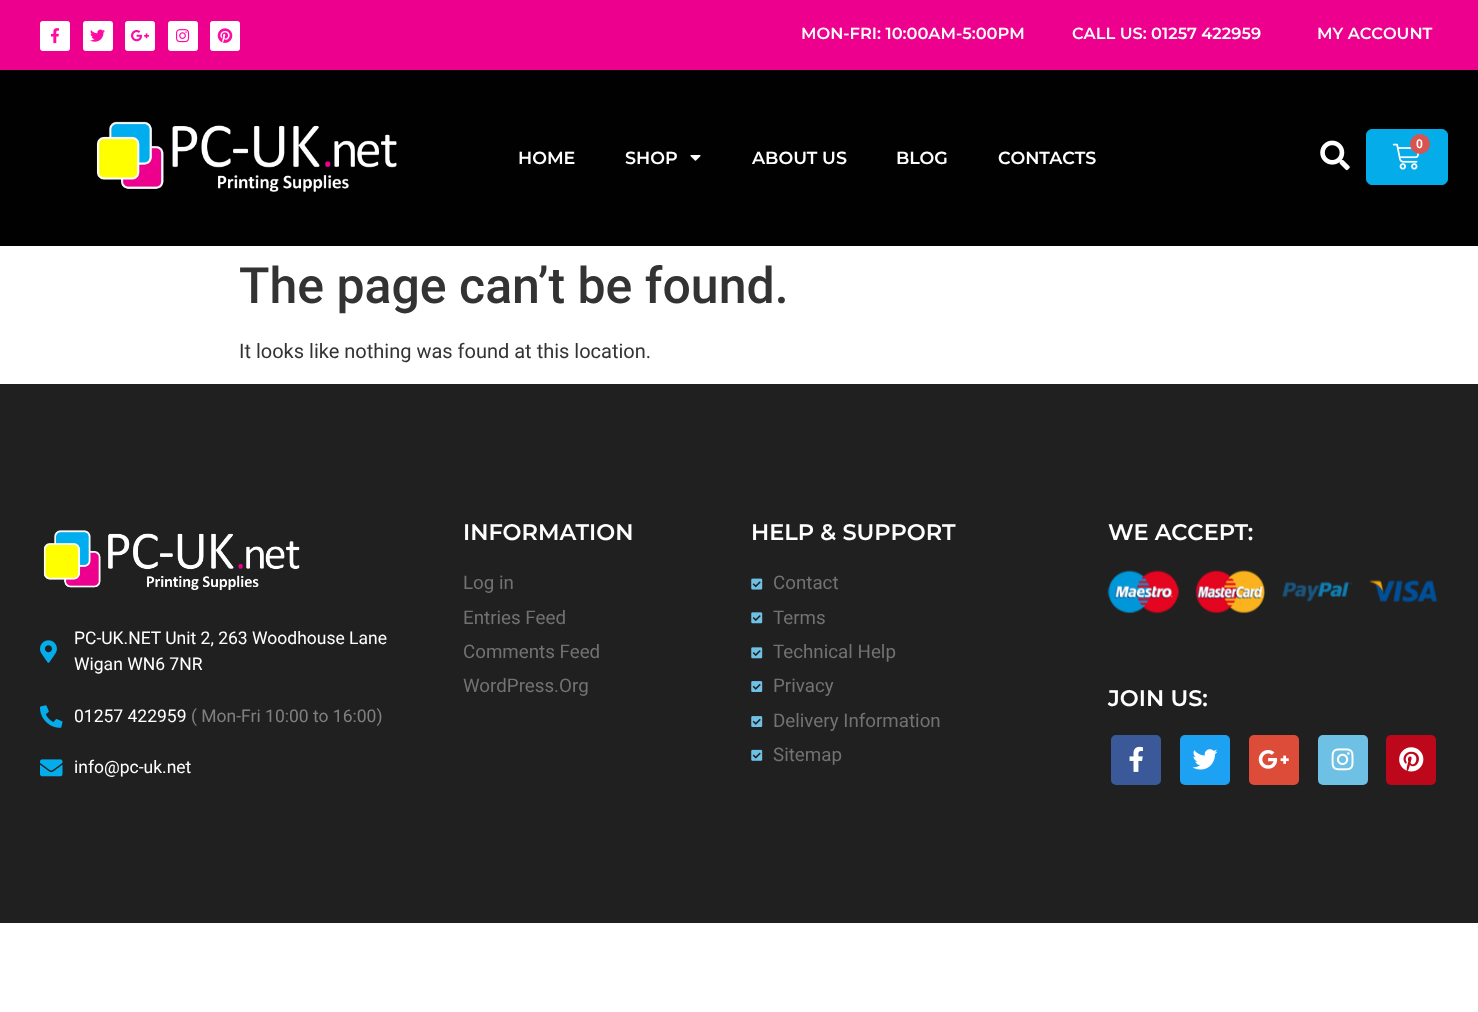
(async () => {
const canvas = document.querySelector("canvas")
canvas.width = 1478
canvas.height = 1012
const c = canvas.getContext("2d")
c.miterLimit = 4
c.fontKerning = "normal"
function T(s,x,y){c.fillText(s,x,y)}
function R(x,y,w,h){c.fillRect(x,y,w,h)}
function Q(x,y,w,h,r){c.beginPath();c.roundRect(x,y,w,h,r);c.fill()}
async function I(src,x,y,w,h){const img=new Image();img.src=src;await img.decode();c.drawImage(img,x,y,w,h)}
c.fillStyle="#fff"
R(0,0,1478,1012)
c.fillStyle="#ed008d"
R(0,0,1478,70)
c.fillStyle="#fff"
Q(40,21,30,30,3)
await I("1.png",51,28,8,16)
Q(83,21,30,30,3)
await I("2.png",90,29,15,13)
Q(125,21,30,30,3)
await I("3.png",131,30,18,12)
Q(168,21,30,30,3)
await I("4.png",175,29,15,14)
Q(210,21,30,30,3)
await I("5.png",217,28,16,15)
c.font="600 16.25px Montserrat"
T("MON-FRI: 10:00AM-5:00PM",801,39)
T("CALL US: 01257 422959",1072,39)
T("MY ACCOUNT",1317,39)
c.fillStyle="#010101"
R(0,70,1478,176)
await I("6.png",96,121,301,71)
c.font="600 17.5px Montserrat"
c.fillStyle="#fff"
T("HOME",518,164)
T("SHOP",625,164)
await I("7.png",690,155,11,6)
T("ABOUT US",752,164)
T("BLOG",896,164)
T("CONTACTS",998,164)
await I("8.png",1320,140,30,31)
c.fillStyle="#04acea"
c.beginPath()
c.roundRect(1366.5,129.5,81,55,5.5)
c.fill()
c.strokeStyle="#04acea"
c.stroke()
await I("9.png",1392,143,28,27)
c.fillStyle="#d9534f"
c.beginPath()
c.arc(1420,144,10,0,7)
c.fill()
c.font="600 12px Roboto"
c.fillStyle="#fff"
T("0",1416,148)
c.font="500 50px Roboto"
c.fillStyle="#333"
T("The page can’t be found.",239,303)
c.font="20px Roboto"
T("It looks like nothing was found at this location.",239,358)
c.fillStyle="#212020"
R(0,384,1478,539)
await I("10.png",43,530,257,61)
await I("11.png",40,640,17,23)
c.font="17.5px Roboto"
c.fillStyle="#fff"
T("PC-UK.NET Unit 2, 263 Woodhouse Lane",74,644)
T("Wigan WN6 7NR",74,670)
await I("12.png",40,705,23,23)
T("01257 422959",74,722)
c.fillStyle="#808080"
T("( Mon-Fri 10:00 to 16:00)",191,722)
await I("13.png",40,759,23,18)
c.fillStyle="#fff"
T("info@pc-uk.net",74,773)
c.font="600 22.5px Montserrat"
T("INFORMATION",463,540)
c.font="18.75px Roboto"
c.fillStyle="#727272"
T("Log in",463,589)
T("Entries Feed",463,624)
T("Comments Feed",463,658)
T("WordPress.Org",463,692)
c.font="600 22.5px Montserrat"
c.fillStyle="#fff"
T("HELP & SUPPORT",751,540)
await I("14.png",751,578,12,12)
c.font="18.75px Roboto"
c.fillStyle="#727272"
T("Contact",773,589)
await I("15.png",751,612,12,12)
T("Terms",773,624)
await I("15.png",751,647,12,12)
T("Technical Help",773,658)
await I("16.png",751,681,12,11)
T("Privacy",773,692)
await I("16.png",751,716,12,11)
T("Delivery Information",773,727)
await I("17.png",751,749,12,12)
T("Sitemap",773,761)
c.font="600 22.5px Montserrat"
c.fillStyle="#fff"
T("WE ACCEPT:",1108,540)
await I("18.png",1107,570,72,44)
await I("19.png",1195,570,70,44)
await I("20.png",1282,581,71,21)
await I("21.png",1369,579,68,24)
T("JOIN US:",1108,706)
c.fillStyle="#3b5998"
Q(1111,735,50,50,5)
await I("22.png",1129,746,14,26)
c.fillStyle="#1da1f2"
Q(1180,735,50,50,5)
await I("23.png",1192,749,26,21)
c.fillStyle="#dd4b39"
Q(1249,735,50,50,5)
await I("24.png",1258,750,31,19)
c.fillStyle="#6ec1e4"
Q(1318,735,50,50,5)
await I("25.png",1331,748,23,23)
c.fillStyle="#bd081c"
Q(1386,735,50,50,5)
await I("26.png",1399,747,25,25)
})()
